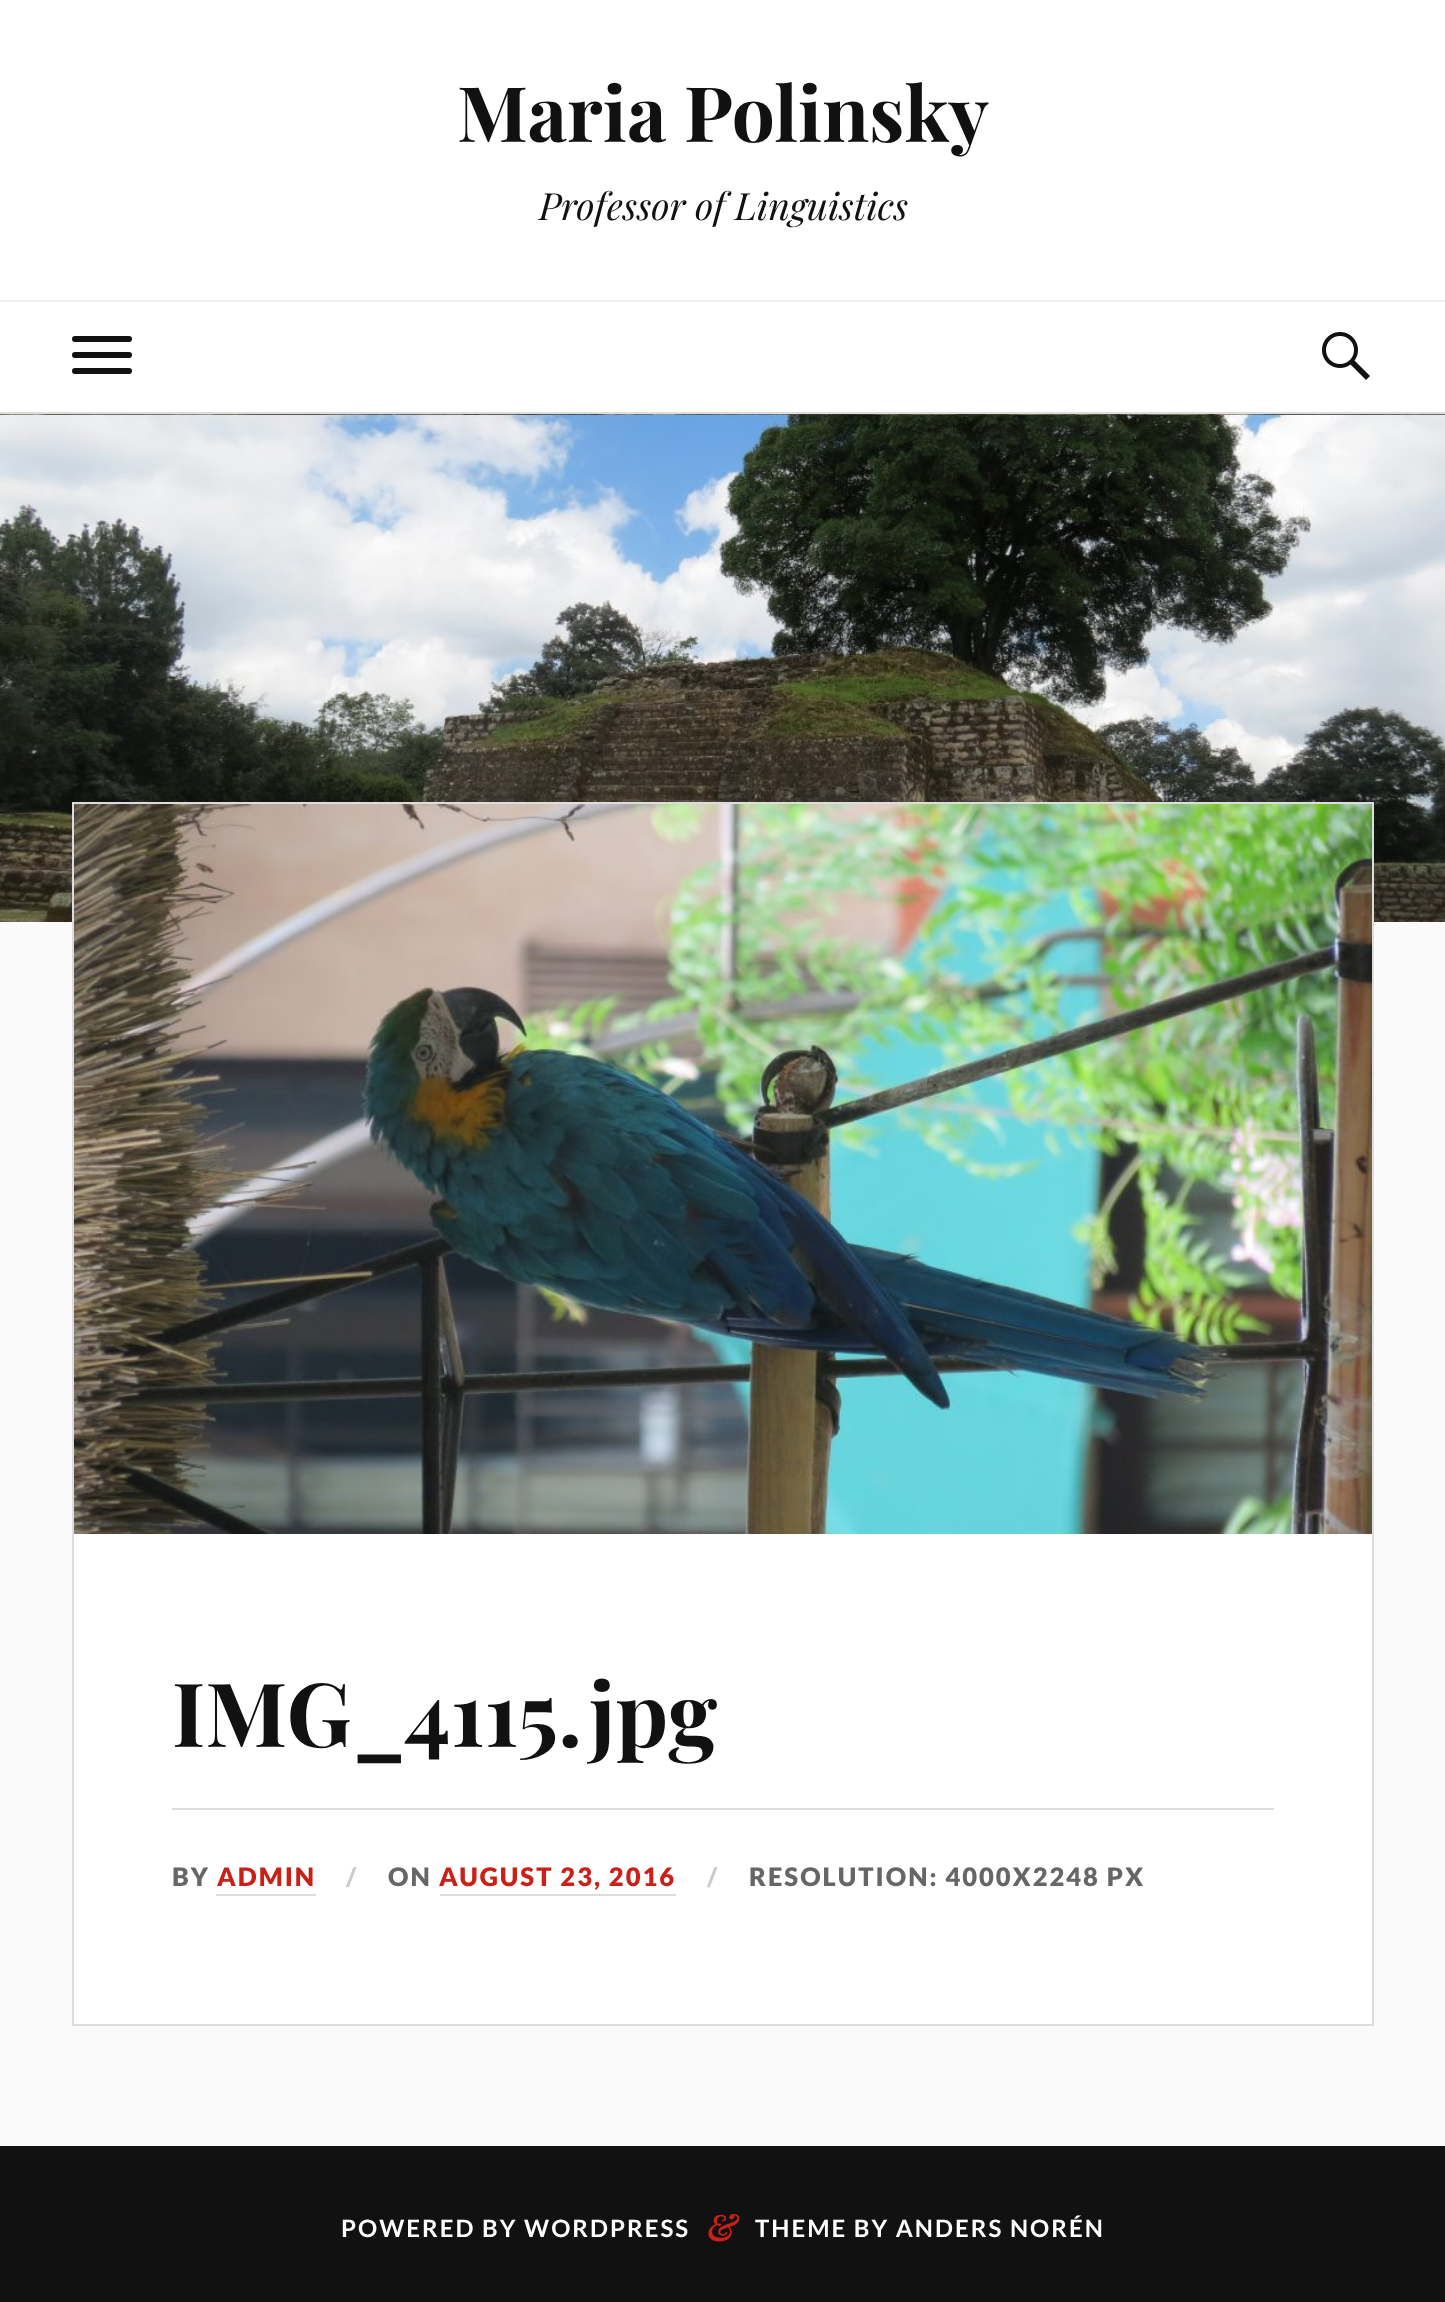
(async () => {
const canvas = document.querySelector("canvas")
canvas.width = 1445
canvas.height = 2302
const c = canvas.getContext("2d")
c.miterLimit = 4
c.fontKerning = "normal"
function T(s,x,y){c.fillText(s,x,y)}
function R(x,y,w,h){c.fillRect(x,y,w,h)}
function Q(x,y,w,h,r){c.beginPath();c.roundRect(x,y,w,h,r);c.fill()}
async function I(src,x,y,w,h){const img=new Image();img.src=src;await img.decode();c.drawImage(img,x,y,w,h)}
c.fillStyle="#fafafa"
R(0,0,1445,2302)
c.fillStyle="#fff"
R(0,0,1445,300)
c.font="bold 76.5px Playfair Display"
c.fillStyle="#111"
T("Maria Polinsky",457,142)
c.font="italic 37.5px Playfair Display"
T("Professor of Linguistics",539,220)
c.fillStyle="#fff"
R(0,302,1445,110)
c.fillStyle="#eee"
R(0,300,1445,2)
c.fillStyle="#111"
Q(72,336,60,6,3)
Q(72,352,60,6,3)
Q(72,368,60,6,3)
await I("1.png",1322,332,48,48)
c.fillStyle="#ddd"
R(0,412,1445,2)
await I("2.png",0,414,1445,508)
c.fillStyle="#fff"
R(74,1534,1298,490)
c.strokeStyle="#ddd"
c.lineWidth=2
c.strokeRect(73,803,1300,1222)
await I("3.png",74,804,1298,730)
c.font="bold 88.5px Playfair Display"
c.fillStyle="#111"
T("IMG_4115.jpg",172,1747)
c.fillStyle="#ddd"
R(172,1808,1102,2)
c.letterSpacing="2px"
c.font="900 25.5px Lato"
c.fillStyle="#666"
T("BY",172,1886)
c.fillStyle="#ca2017"
T("ADMIN",217,1886)
c.fillStyle="#ddd"
R(216,1894,100,2)
c.fillStyle="#ccc"
T("/",346,1886)
c.fillStyle="#666"
T("ON",388,1886)
c.fillStyle="#ca2017"
T("AUGUST 23, 2016",439,1886)
c.fillStyle="#ddd"
R(440,1894,236,2)
c.fillStyle="#ccc"
T("/",707,1886)
c.fillStyle="#666"
T("RESOLUTION: 4000X2248 PX",749,1886)
c.fillStyle="#111"
R(0,2146,1445,156)
c.font="bold 24px Lato"
c.fillStyle="#fff"
T("POWERED BY WORDPRESS",341,2237)
c.font="italic bold 36px Playfair Display"
c.fillStyle="#ca2017"
T("&",707,2241)
c.font="bold 24px Lato"
c.fillStyle="#fff"
T("THEME BY ANDERS NORÉN",755,2237)
})()
